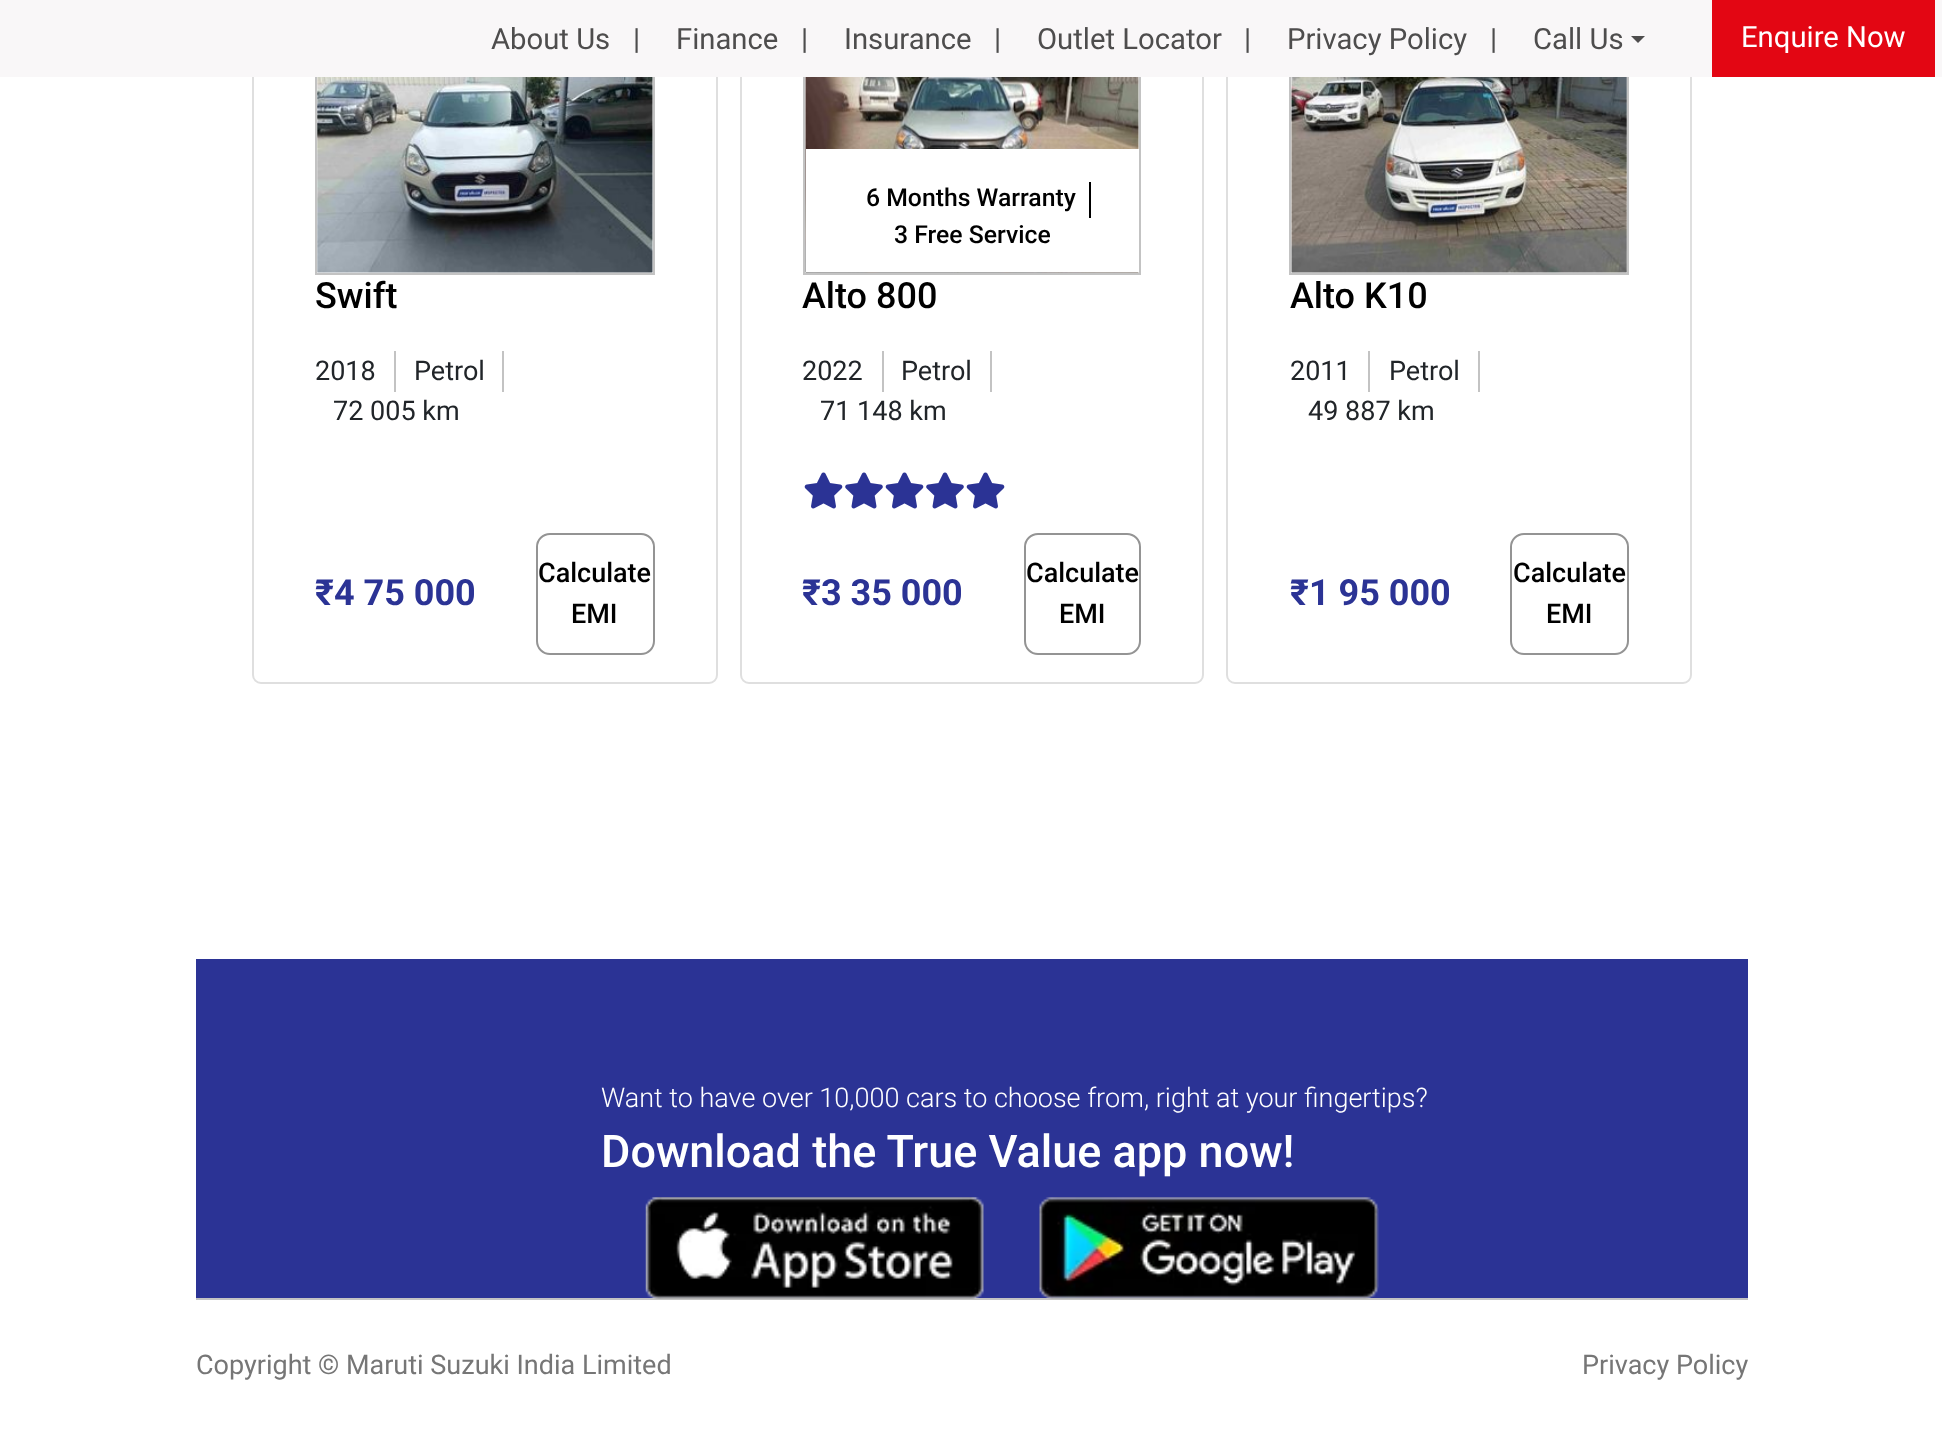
(async () => {
const canvas = document.querySelector("canvas")
canvas.width = 1942
canvas.height = 1429
const c = canvas.getContext("2d")
c.miterLimit = 4
c.fontKerning = "normal"
function T(s,x,y){c.fillText(s,x,y)}
function R(x,y,w,h){c.fillRect(x,y,w,h)}
async function I(src,x,y,w,h){const img=new Image();img.src=src;await img.decode();c.drawImage(img,x,y,w,h)}
let path
c.fillStyle="#fff"
R(0,0,1942,1429)
c.beginPath()
c.roundRect(253,-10,464,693,8)
c.strokeStyle="#dfdfdf"
c.lineWidth=2
c.stroke()
c.strokeStyle="#c3c3c3"
c.strokeRect(316,28,338,246)
c.beginPath()
c.roundRect(741,-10,462,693,8)
c.strokeStyle="#dfdfdf"
c.stroke()
c.strokeStyle="#c3c3c3"
c.strokeRect(804,28,336,246)
c.beginPath()
c.roundRect(1227,-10,464,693,8)
c.strokeStyle="#dfdfdf"
c.stroke()
c.strokeStyle="#c3c3c3"
c.strokeRect(1290,28,338,246)
c.fillStyle="#f9f7f8"
R(0,0,1942,77)
c.font="29.25px Roboto"
c.fillStyle="#4e4d4d"
T("About Us",491,49)
T("|",633,49)
T("Finance",676,49)
T("|",801,49)
T("Insurance",844,49)
T("|",994,49)
T("Outlet Locator",1037,49)
T("|",1244,49)
T("Privacy Policy",1287,49)
T("|",1490,49)
T("Call Us",1533,49)
path = new Path2D("M1631 36h14l-7 7z")
c.fill(path)
c.fillStyle="#e30613"
R(1712,0,223,77)
c.fillStyle="#fff"
T("Enquire Now",1741,47)
await I("1.png",317,77,336,196)
c.font="500 36px Roboto"
c.fillStyle="#000"
T("Swift",315,308)
c.fillStyle="#c3c3c3"
R(394,351,2,41)
c.font="27px Roboto"
c.fillStyle="#212529"
T("2018",315,380)
c.fillStyle="#c3c3c3"
R(502,351,2,41)
c.fillStyle="#212529"
T("Petrol",414,380)
T("72 005 km",333,420)
c.font="bold 36px Roboto"
c.fillStyle="#2b3395"
T("₹4 75 000",315,605)
c.beginPath()
c.roundRect(537,534,117,120,13)
c.strokeStyle="#949494"
c.stroke()
c.font="500 27px Roboto"
c.fillStyle="#000"
T("Calculate",538,582)
T("EMI",571,623)
await I("2.png",805,77,334,196)
c.fillStyle="#fff"
R(806,149,333,123)
c.fillStyle="#000"
R(1089,182,2,36)
c.font="500 24.75px Roboto"
T("6 Months Warranty",866,206)
T("3 Free Service",894,243)
c.font="500 36px Roboto"
T("Alto 800",802,308)
c.fillStyle="#c3c3c3"
R(882,351,2,41)
c.font="27px Roboto"
c.fillStyle="#212529"
T("2022",802,380)
c.fillStyle="#c3c3c3"
R(990,351,2,41)
c.fillStyle="#212529"
T("Petrol",901,380)
T("71 148 km",820,420)
await I("3.png",804,472,39,37)
await I("4.png",845,472,38,37)
await I("3.png",885,472,39,37)
await I("4.png",926,472,38,37)
await I("3.png",966,472,39,37)
c.font="bold 36px Roboto"
c.fillStyle="#2b3395"
T("₹3 35 000",802,605)
c.beginPath()
c.roundRect(1025,534,115,120,13)
c.stroke()
c.font="500 27px Roboto"
c.fillStyle="#000"
T("Calculate",1026,582)
T("EMI",1059,623)
await I("5.png",1291,77,336,196)
c.font="500 36px Roboto"
T("Alto K10",1290,308)
c.fillStyle="#c3c3c3"
R(1368,351,2,41)
c.font="27px Roboto"
c.fillStyle="#212529"
T("2011",1290,380)
c.fillStyle="#c3c3c3"
R(1478,351,2,41)
c.fillStyle="#212529"
T("Petrol",1389,380)
T("49 887 km",1308,420)
c.font="bold 36px Roboto"
c.fillStyle="#2b3395"
T("₹1 95 000",1290,605)
c.beginPath()
c.roundRect(1511,534,117,120,13)
c.stroke()
c.font="500 27px Roboto"
c.fillStyle="#000"
T("Calculate",1513,582)
T("EMI",1546,623)
c.fillStyle="#2b3395"
R(196,959,1552,339)
c.font="300 27px Roboto"
c.fillStyle="#fff"
T("Want to have over 10,000 cars to choose from, right at your fingertips?",601,1107)
c.font="500 45px Roboto"
T("Download the True Value app now!",601,1167)
c.fillStyle="#c3c3c3"
R(196,1298,1552,2)
await I("6.png",645,1197,339,102)
await I("7.png",1039,1197,340,102)
c.font="27px Roboto"
c.fillStyle="#767676"
T("Copyright © Maruti Suzuki India Limited",196,1374)
T("Privacy Policy",1582,1374)
})()
